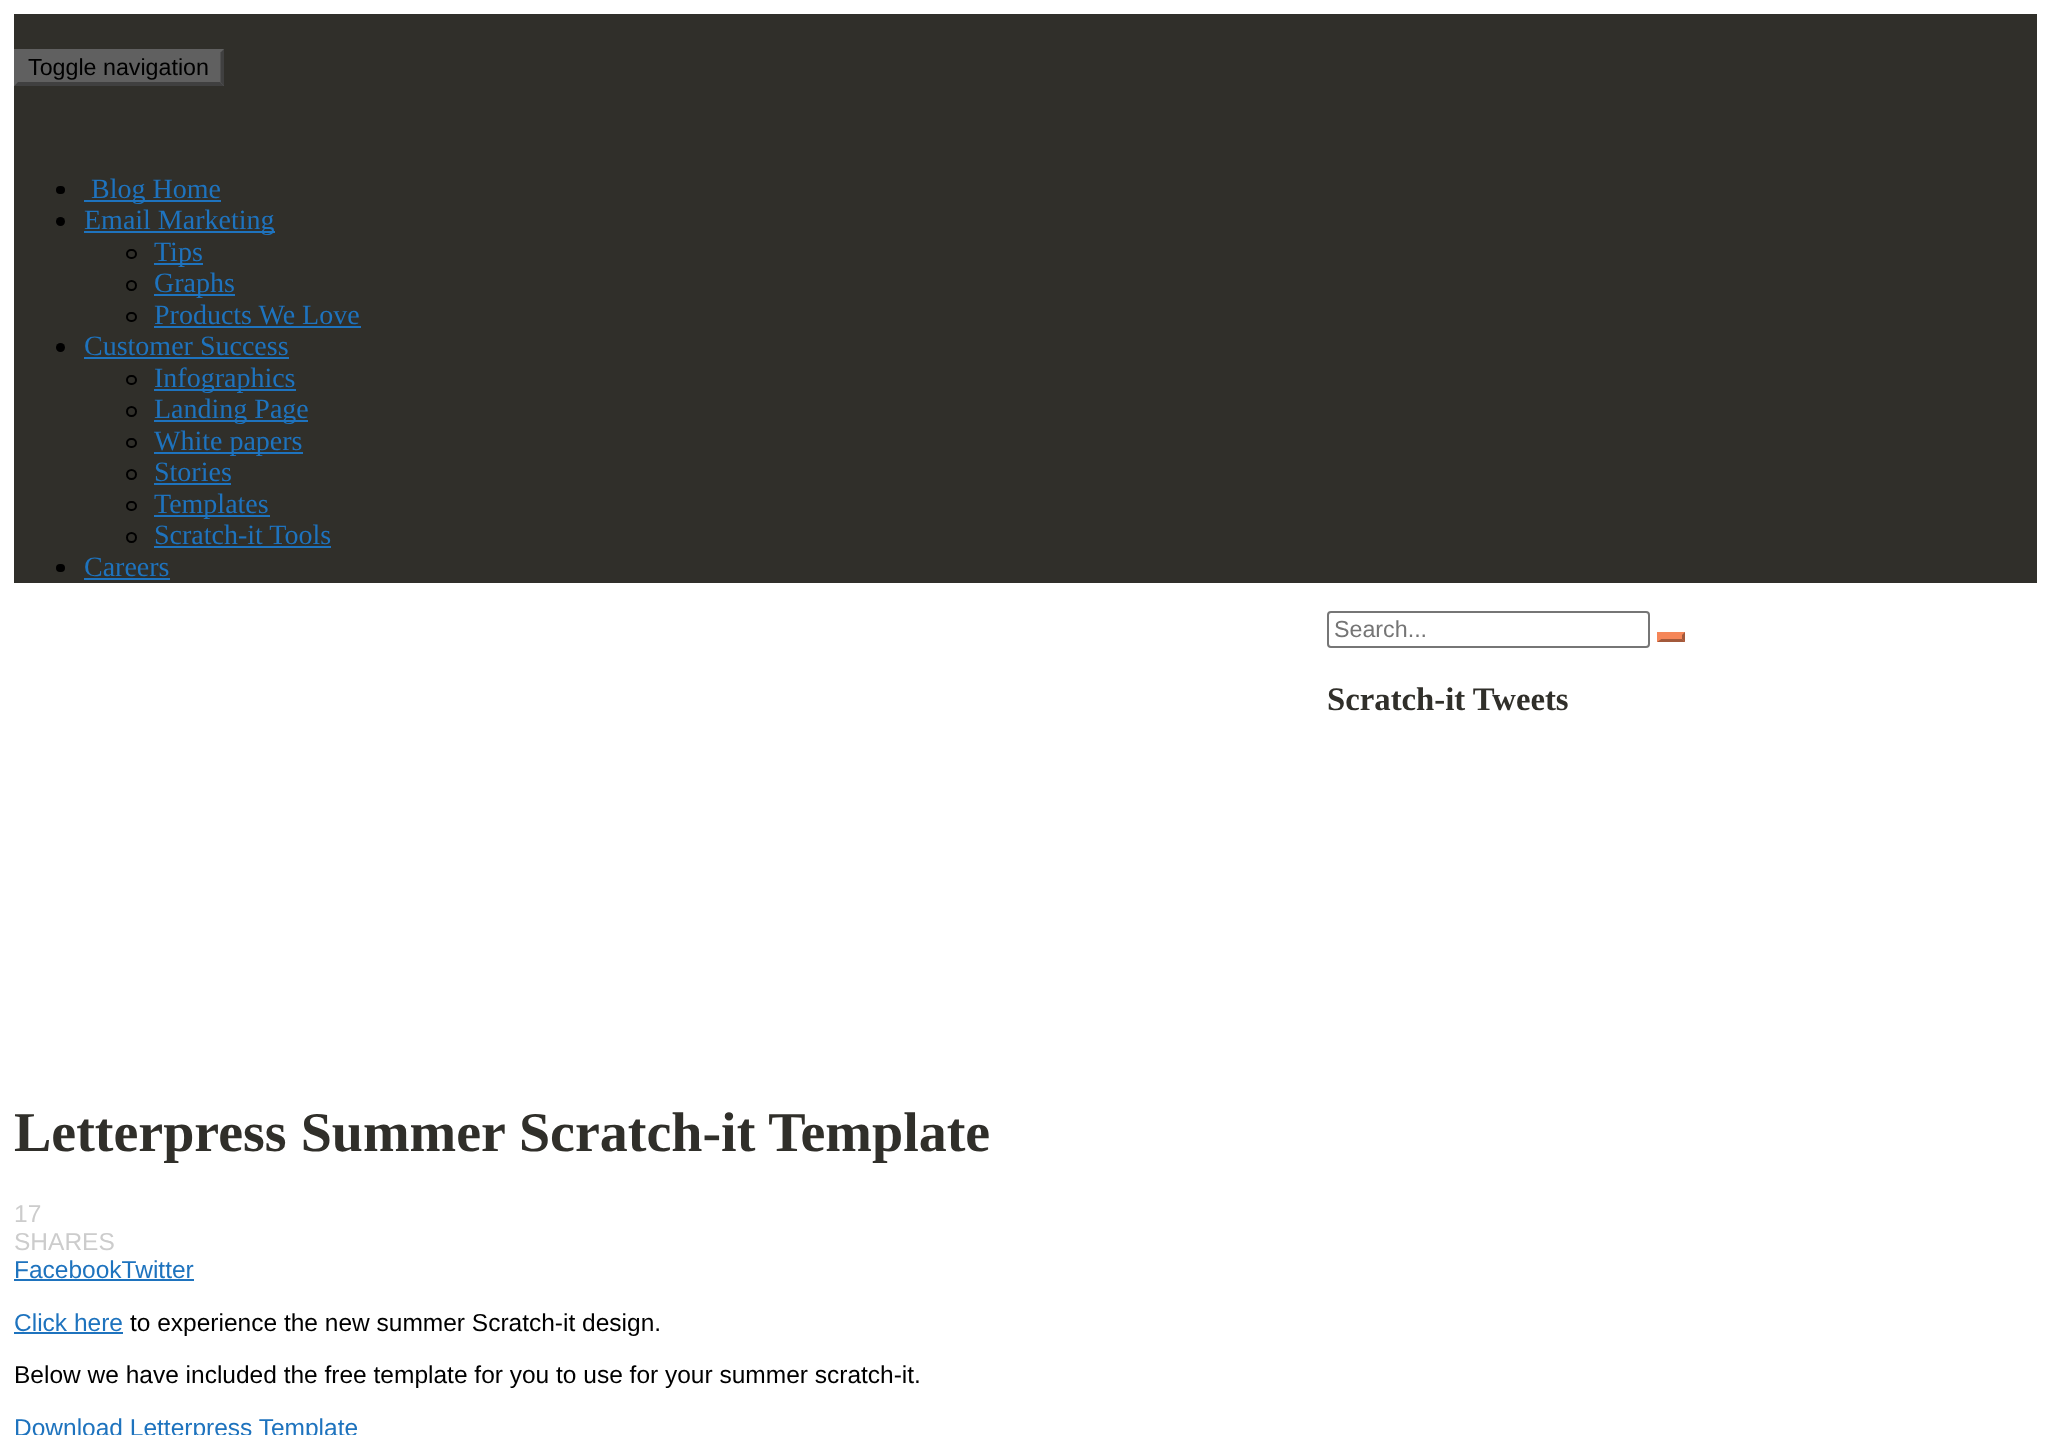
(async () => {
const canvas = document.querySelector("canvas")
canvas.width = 2050
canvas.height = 1435
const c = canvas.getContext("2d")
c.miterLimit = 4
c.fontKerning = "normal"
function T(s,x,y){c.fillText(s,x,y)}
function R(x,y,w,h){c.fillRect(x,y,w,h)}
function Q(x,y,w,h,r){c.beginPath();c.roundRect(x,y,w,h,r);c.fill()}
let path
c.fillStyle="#fff"
R(0,0,2050,1435)
c.fillStyle="#302f2a"
R(14,14,2023,569)
c.fillStyle="#606060"
R(14,49,210,37)
c.fillStyle="#404040"
path = new Path2D("M224 49v37l-3.5-4v-29.5z")
c.fill(path)
path = new Path2D("M224 86h-210l4-4h202z")
c.fill(path)
c.fillStyle="#606060"
path = new Path2D("M14 86v-37l3.5 3.5v29.5z")
c.fill(path)
c.font="23.25px Liberation Sans"
c.fillStyle="#000"
T("Toggle navigation",28,75)
Q(56,186,9,8,4)
c.fillStyle="#1e73be"
R(84,200,137,2)
c.font="28px Liberation Serif"
T("Blog Home",91,198)
c.fillStyle="#000"
c.beginPath()
c.arc(60.5,221.5,4.5,0,7)
c.fill()
c.fillStyle="#1e73be"
R(84,231,191,2)
T("Email Marketing",84,229)
c.beginPath()
c.roundRect(127,250,9,8,4)
c.strokeStyle="#000"
c.lineWidth=2
c.stroke()
R(154,263,49,2)
T("Tips",154,261)
c.beginPath()
c.arc(131.5,285.5,4.5,0,7)
c.stroke()
R(154,294,81,2)
T("Graphs",154,292)
c.beginPath()
c.roundRect(127,313,9,8,4)
c.stroke()
T("Products We Love",154,324)
R(154,326,207,2)
c.fillStyle="#000"
c.beginPath()
c.arc(60.5,347.5,4.5,0,7)
c.fill()
c.fillStyle="#1e73be"
T("Customer Success",84,355)
R(84,357,205,2)
c.beginPath()
c.roundRect(127,376,9,8,4)
c.stroke()
R(154,389,142,2)
T("Infographics",154,387)
c.beginPath()
c.arc(131.5,411.5,4.5,0,7)
c.stroke()
R(154,420,154,2)
T("Landing Page",154,418)
c.beginPath()
c.roundRect(127,439,9,8,4)
c.stroke()
R(154,452,149,2)
T("White papers",154,450)
c.beginPath()
c.arc(131.5,474.5,4.5,0,7)
c.stroke()
T("Stories",154,481)
R(154,483,77,2)
c.beginPath()
c.roundRect(127,502,9,8,4)
c.stroke()
R(154,515,116,2)
T("Templates",154,513)
c.beginPath()
c.arc(131.5,537.5,4.5,0,7)
c.stroke()
T("Scratch-it Tools",154,544)
R(154,546,177,2)
c.fillStyle="#000"
Q(56,564,9,8,4)
c.fillStyle="#1e73be"
T("Careers",84,576)
R(84,578,86,2)
c.beginPath()
c.roundRect(1328,612,321,35,3)
c.strokeStyle="#767676"
c.stroke()
c.font="23.25px Liberation Sans"
c.fillStyle="#757575"
T("Search...",1334,637)
c.fillStyle="#f58658"
R(1657,632,28,10)
c.fillStyle="#a3593b"
path = new Path2D("M1685 632v10l-3-3v-4z")
c.fill(path)
path = new Path2D("M1685 642h-28l4-3h21z")
c.fill(path)
c.fillStyle="#f58658"
path = new Path2D("M1657 642v-10l4 3v4z")
c.fill(path)
c.font="bold 32.75px Liberation Serif"
c.fillStyle="#302f2a"
T("Scratch-it Tweets",1327,710)
c.font="bold 56px Liberation Serif"
T("Letterpress Summer Scratch-it Template",14,1151)
c.font="24.5px Liberation Sans"
c.fillStyle="#ccc"
T("17",14,1222)
T("SHARES",14,1250)
c.fillStyle="#1e73be"
T("FacebookTwitter",14,1278)
R(14,1279,180,2)
T("Click here",14,1331)
R(14,1332,109,2)
c.fillStyle="#000"
T("to experience the new summer Scratch-it design.",130,1331)
T("Below we have included the free template for you to use for your summer scratch-it.",14,1383)
c.fillStyle="#1e73be"
T("Download Letterpress Template",14,1436)
})()
